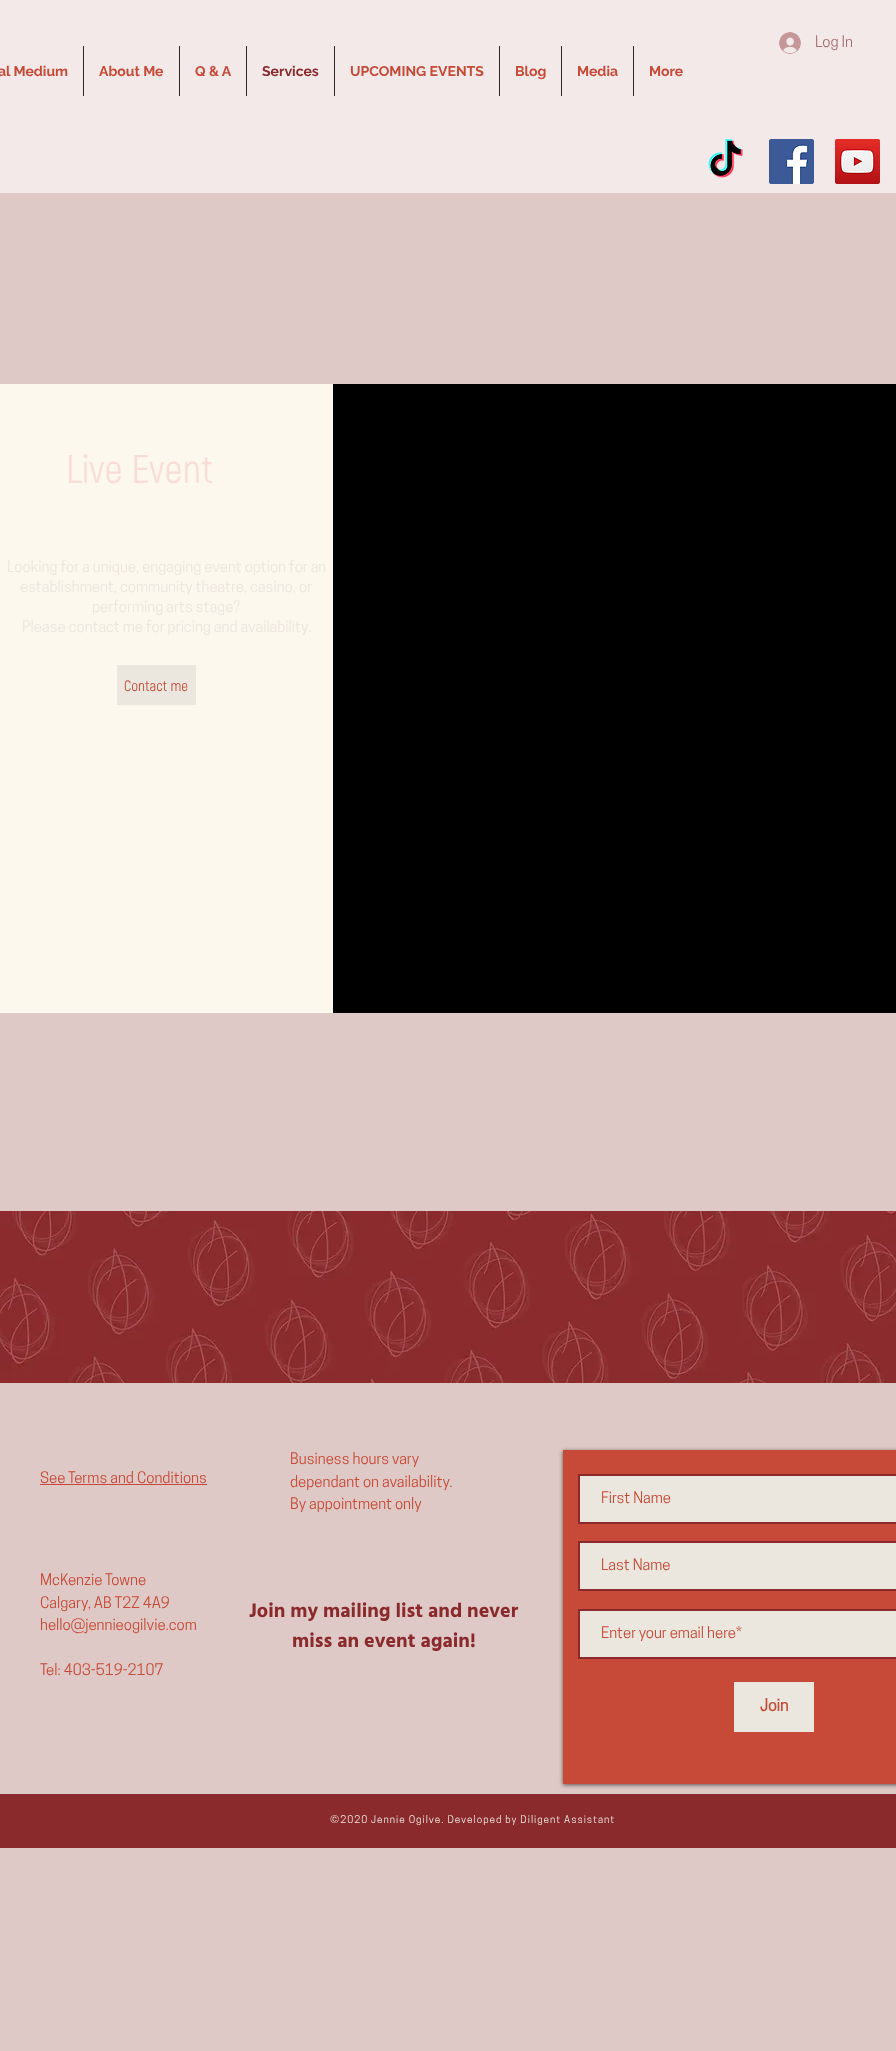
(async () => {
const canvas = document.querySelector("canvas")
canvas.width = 896
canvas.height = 2051
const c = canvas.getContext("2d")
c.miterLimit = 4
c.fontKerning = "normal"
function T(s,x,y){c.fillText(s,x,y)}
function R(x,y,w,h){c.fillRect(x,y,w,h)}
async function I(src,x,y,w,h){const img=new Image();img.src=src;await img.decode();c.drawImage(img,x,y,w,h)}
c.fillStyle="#dfc9c6"
R(0,0,896,2051)
c.fillStyle="#f2e9e8"
R(0,0,896,193)
await I("1.png",779,32,22,22)
c.font="15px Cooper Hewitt"
c.fillStyle="#a76d6f"
T("Log In",815,47)
c.font="bold 14px Raleway"
c.fillStyle="#c64a37"
T("al Medium",-2,76)
c.fillStyle="#302625"
R(83,46,1,50)
c.fillStyle="#c64a37"
T("About Me",99,76)
c.fillStyle="#302625"
R(179,46,1,50)
c.fillStyle="#c64a37"
T("Q & A",195,76)
c.fillStyle="#302625"
R(246,46,1,50)
c.fillStyle="#8a2a2d"
T("Services",262,76)
c.fillStyle="#302625"
R(334,46,1,50)
c.fillStyle="#c64a37"
T("UPCOMING EVENTS",350,76)
c.fillStyle="#302625"
R(499,46,1,50)
c.fillStyle="#c64a37"
T("Blog",515,76)
c.fillStyle="#302625"
R(561,46,1,50)
c.fillStyle="#c64a37"
T("Media",577,76)
c.fillStyle="#302625"
R(633,46,1,50)
c.fillStyle="#c64a37"
T("More",649,76)
await I("2.png",708,139,35,39)
await I("3.png",769,139,45,45)
await I("4.png",835,139,45,45)
c.fillStyle="#fcf8ed"
R(0,384,333,629)
c.font="40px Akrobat"
c.fillStyle="#fadcd6"
T("Live Event",66,483)
c.font="15px Cooper Hewitt"
c.fillStyle="#ebe6de"
T("Looking for a unique, engaging event option for an",7,572)
T("establishment, community theatre, casino, or",20,592)
T("performing arts stage?",92,612)
T("Please contact me for pricing and availability.",22,632)
R(117,665,79,40)
c.font="15px Akrobat"
c.fillStyle="#c64a37"
T("Contact me",124,691)
c.fillStyle="#000"
R(333,384,563,629)
await I("5.png",0,1211,896,172)
c.font="15px Cooper Hewitt"
c.fillStyle="#c64a37"
T("See Terms and Conditions",40,1483)
R(40,1484,167,1)
T("Business hours vary",290,1464)
T("dependant on availability.",290,1487)
T("By appointment only",290,1509)
T("McKenzie Towne",40,1585)
T("Calgary, AB T2Z 4A9",40,1608)
T("hello@jennieogilvie.com",40,1630)
T("Tel: 403-519-2107",40,1675)
c.font="bold 20px Hind"
c.fillStyle="#8a2a2d"
T("Join my mailing list and never",249,1617)
T("miss an event again!",292,1647)
c.fillStyle="#00000099"
c.filter="blur(2px)"
c.beginPath()
c.rect(563,1451,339,334)
c.fill()
c.filter="none"
c.fillStyle="#c64a37"
R(563,1450,333,334)
c.fillStyle="#ebe6de"
c.beginPath()
c.rect(579,1475,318,48)
c.fill()
c.strokeStyle="#8a2a2d"
c.lineWidth=2
c.stroke()
c.font="15px Cooper Hewitt"
c.fillStyle="#c64a37"
T("First Name",601,1503)
c.fillStyle="#ebe6de"
c.beginPath()
c.rect(579,1542,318,48)
c.fill()
c.stroke()
c.fillStyle="#c64a37"
T("Last Name",601,1570)
c.fillStyle="#ebe6de"
c.beginPath()
c.rect(579,1610,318,48)
c.fill()
c.stroke()
c.fillStyle="#c64a37"
T("Enter your email here*",601,1638)
c.fillStyle="#ebe6de"
R(734,1682,80,50)
c.font="bold 16px Cooper Hewitt"
c.fillStyle="#c64a37"
T("Join",760,1711)
c.fillStyle="#8a2a2d"
R(0,1794,896,54)
c.letterSpacing="1px"
c.font="10px Cooper Hewitt"
c.fillStyle="#ebe6de"
T("©2020 Jennie Ogilve. Developed by Diligent Assistant",330,1823)
})()
